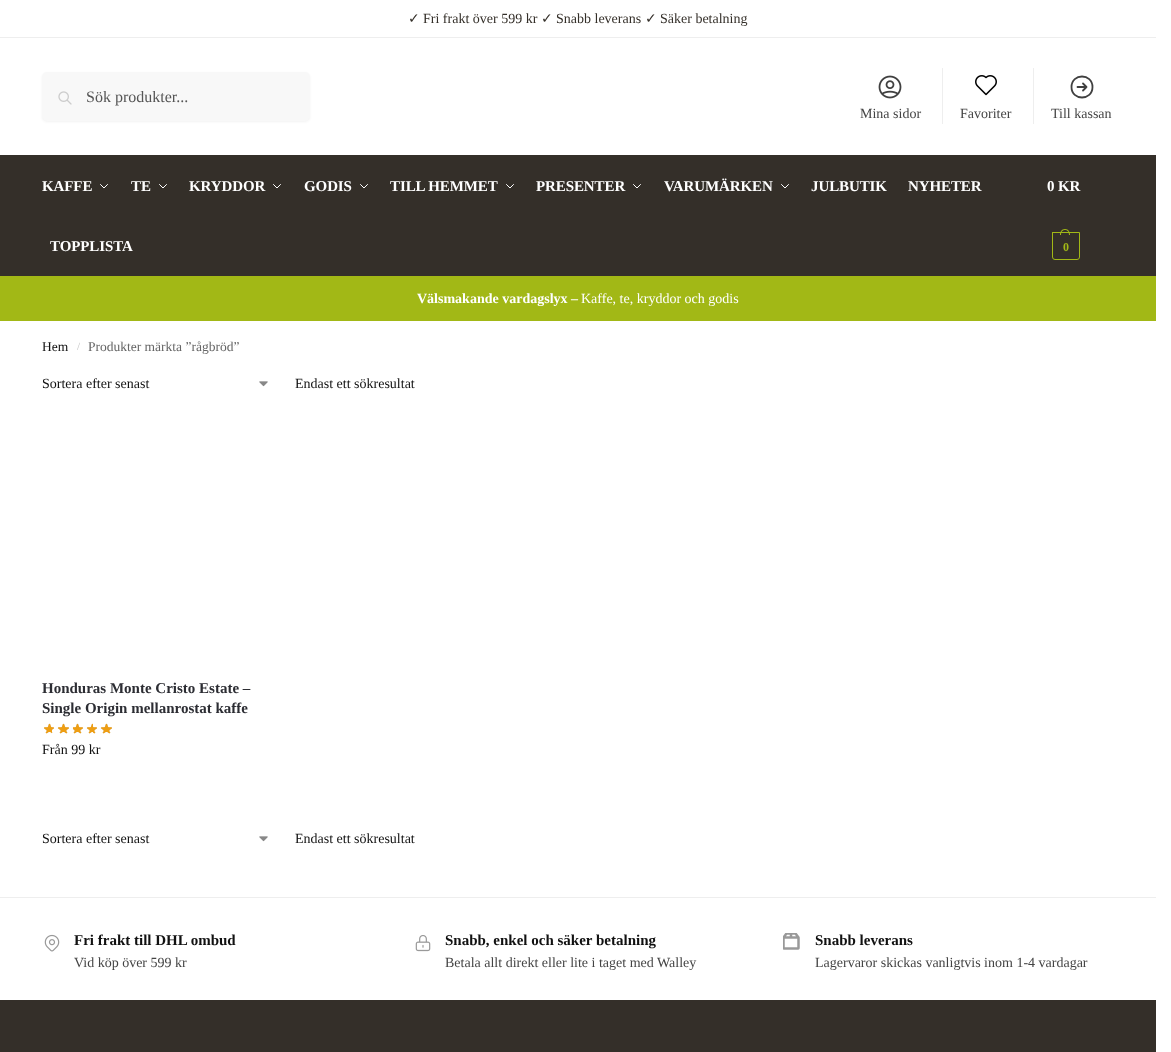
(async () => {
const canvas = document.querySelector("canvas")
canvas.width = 1171
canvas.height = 1052
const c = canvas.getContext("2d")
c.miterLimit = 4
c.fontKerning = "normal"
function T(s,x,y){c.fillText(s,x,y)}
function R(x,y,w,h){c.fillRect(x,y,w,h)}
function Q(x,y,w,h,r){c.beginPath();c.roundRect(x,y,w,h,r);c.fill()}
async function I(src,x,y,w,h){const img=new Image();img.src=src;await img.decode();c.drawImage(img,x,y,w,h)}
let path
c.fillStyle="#fff"
R(0,0,1171,1052)
c.fillStyle="#eee"
R(0,37,1156,1)
c.font="14px DejaVu Sans"
c.fillStyle="#342f29"
T("✓",408,23)
c.font="14px Liberation Serif"
T("Fri frakt över 599 kr",423,23)
c.font="14px DejaVu Sans"
T("✓",541,23)
c.font="14px Liberation Serif"
T("Snabb leverans",556,23)
c.font="14px DejaVu Sans"
T("✓",645,23)
c.font="14px Liberation Serif"
T("Säker betalning",660,23)
c.fillStyle="#0000000d"
c.filter="blur(1px)"
c.beginPath()
c.roundRect(42,73,268,49,5)
c.fill()
c.filter="none"
c.fillStyle="#f8f8f8"
Q(42,72,268,49,5)
await I("1.png",58,91,14,14)
c.font="16px Liberation Serif"
c.fillStyle="#555"
T("Sök produkter...",86,102)
await I("2.png",878,75,24,24)
c.font="14px Liberation Serif"
c.fillStyle="#444"
T("Mina sidor",860,118)
c.fillStyle="#eee"
R(942,68,1,56)
await I("3.png",975,75,22,21)
c.fillStyle="#444"
T("Favoriter",960,118)
c.fillStyle="#eee"
R(1033,68,1,56)
path = new Path2D("M1083 83.5l3.5 3.5m0 0l-3.5 3.5m3.5-3.5h-9m15 0c0 14-21 14-21 0c0-14 21-14 21 0z")
c.strokeStyle="#404040"
c.lineWidth=1.8
c.lineCap="round"
c.lineJoin="round"
c.stroke(path)
c.fillStyle="#444"
T("Till kassan",1051,118)
c.fillStyle="#342f29"
R(0,155,1156,121)
c.letterSpacing="-0.1px"
c.font="bold 15px Liberation Serif"
c.fillStyle="#fff"
T("KAFFE",42,191)
path = new Path2D("M107.5 184.5l-3.5 3.5l-3.5-3.5")
c.strokeStyle="#fff"
c.lineWidth=1
c.stroke(path)
T("TE",131,191)
path = new Path2D("M166.5 184.5l-3.5 3.5l-3.5-3.5")
c.stroke(path)
T("KRYDDOR",189,191)
path = new Path2D("M280.5 184.5l-3.5 3.5l-3.5-3.5")
c.stroke(path)
T("GODIS",304,191)
path = new Path2D("M367.5 184.5l-3.5 3.5l-3.5-3.5")
c.stroke(path)
T("TILL HEMMET",390,191)
path = new Path2D("M513.5 184.5l-3.5 3.5l-3.5-3.5")
c.stroke(path)
T("PRESENTER",536,191)
path = new Path2D("M640.5 184.5l-3.5 3.5l-3.5-3.5")
c.stroke(path)
T("VARUMÄRKEN",664,191)
path = new Path2D("M788.5 184.5l-3.5 3.5l-3.5-3.5")
c.stroke(path)
T("JULBUTIK",811,191)
T("NYHETER",908,191)
T("TOPPLISTA",50,251)
T("0 KR",1047,191)
c.beginPath()
c.roundRect(1052.5,232.5,27,27,[0,0,2.5,2.5])
c.strokeStyle="#a2b816"
c.lineJoin="miter"
c.stroke()
c.fillStyle="#a2b816"
path = new Path2D("M1065 229c3.5 0 5 3 5 6h-10c0-3 1.5-6 5-6zm0 1c3 0 4 2.5 4 5h-8c0-2.5 1-5 4-5z")
c.fill(path,"evenodd")
c.letterSpacing="-1px"
c.font="bold 12px Liberation Serif"
T("0",1063,251)
R(0,276,1156,45)
c.letterSpacing="0px"
c.font="bold 14px Liberation Serif"
c.fillStyle="#fff"
T("Välsmakande vardagslyx –",417,303)
c.font="14px Liberation Serif"
T("Kaffe, te, kryddor och godis",581,303)
c.font="13.5px Liberation Serif"
c.fillStyle="#111"
T("Hem",42,351)
c.font="11px Liberation Serif"
c.fillStyle="#c2c2c2"
T("/",77,350)
c.font="13.5px Liberation Serif"
c.fillStyle="#666"
T("Produkter märkta ”rågbröd”",88,351)
await I("4.png",259,381,9,6)
c.font="14px Liberation Serif"
c.fillStyle="#111"
T("Sortera efter senast",42,388)
T("Endast ett sökresultat",295,388)
c.font="bold 15px Liberation Serif"
c.fillStyle="#2c2d33"
T("Honduras Monte Cristo Estate –",42,693)
T("Single Origin mellanrostat kaffe",42,713)
await I("5.png",44,723,68,11)
await I("6.png",44,723,68,11)
c.font="14px Liberation Serif"
c.fillStyle="#111"
T("Från 99 kr",42,754)
await I("4.png",259,836,9,6)
T("Sortera efter senast",42,843)
T("Endast ett sökresultat",295,843)
c.fillStyle="#eee"
R(0,897,1156,1)
c.font="bold 15px Liberation Serif"
c.fillStyle="#111"
T("Fri frakt till DHL ombud",74,945)
await I("7.png",44,934,16,18)
c.font="14px Liberation Serif"
c.fillStyle="#444"
T("Vid köp över 599 kr",74,967)
c.font="bold 15px Liberation Serif"
c.fillStyle="#111"
T("Snabb, enkel och säker betalning",445,945)
await I("8.png",415,935,16,17)
c.font="14px Liberation Serif"
c.fillStyle="#444"
T("Betala allt direkt eller lite i taget med Walley",445,967)
c.font="bold 15px Liberation Serif"
c.fillStyle="#111"
T("Snabb leverans",815,945)
await I("9.png",783,933,17,17)
c.font="14px Liberation Serif"
c.fillStyle="#444"
T("Lagervaror skickas vanligtvis inom 1-4 vardagar",815,967)
c.fillStyle="#342f29"
R(0,1000,1156,52)
})()
